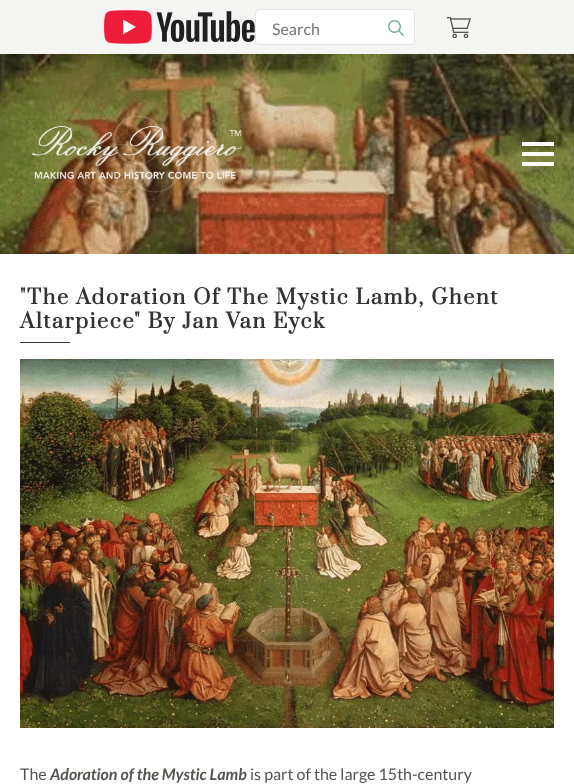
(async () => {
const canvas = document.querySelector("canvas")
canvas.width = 574
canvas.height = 784
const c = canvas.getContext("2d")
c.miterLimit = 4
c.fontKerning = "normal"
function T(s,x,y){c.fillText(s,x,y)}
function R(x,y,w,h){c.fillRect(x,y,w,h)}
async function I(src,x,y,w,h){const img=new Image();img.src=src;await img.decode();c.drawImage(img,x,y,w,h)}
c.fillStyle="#fff"
R(0,0,574,784)
c.fillStyle="#f5f5f4"
R(0,0,574,54)
await I("1.png",104,10,151,34)
c.fillStyle="#fff"
c.beginPath()
c.roundRect(255.5,9.5,159,35,3.5)
c.fill()
c.strokeStyle="#e7e5e4"
c.stroke()
c.font="16px Lato"
c.fillStyle="#757575"
T("Search",272,35)
await I("2.png",388,20,16,16)
await I("3.png",447,17,24,21)
await I("4.png",0,54,574,200)
await I("5.png",31,115,212,78)
c.fillStyle="#fafaf9"
R(522,152,32,4)
R(522,142,32,4)
R(522,162,32,4)
c.letterSpacing="1.6px"
c.font="bold 20px Prata"
c.fillStyle="#333"
T("\"The Adoration Of The Mystic Lamb, Ghent",20,304)
T("Altarpiece\" By Jan Van Eyck",20,328)
c.fillStyle="#33373d"
R(20,342,50,1)
await I("6.png",20,359,534,369)
c.letterSpacing="0px"
c.font="16px Lato"
c.fillStyle="#57534e"
T("The",20,780)
c.font="italic bold 16px Lato"
T("Adoration of the Mystic Lamb",50,780)
c.font="16px Lato"
T("is part of the large 15th-century",250,780)
})()
